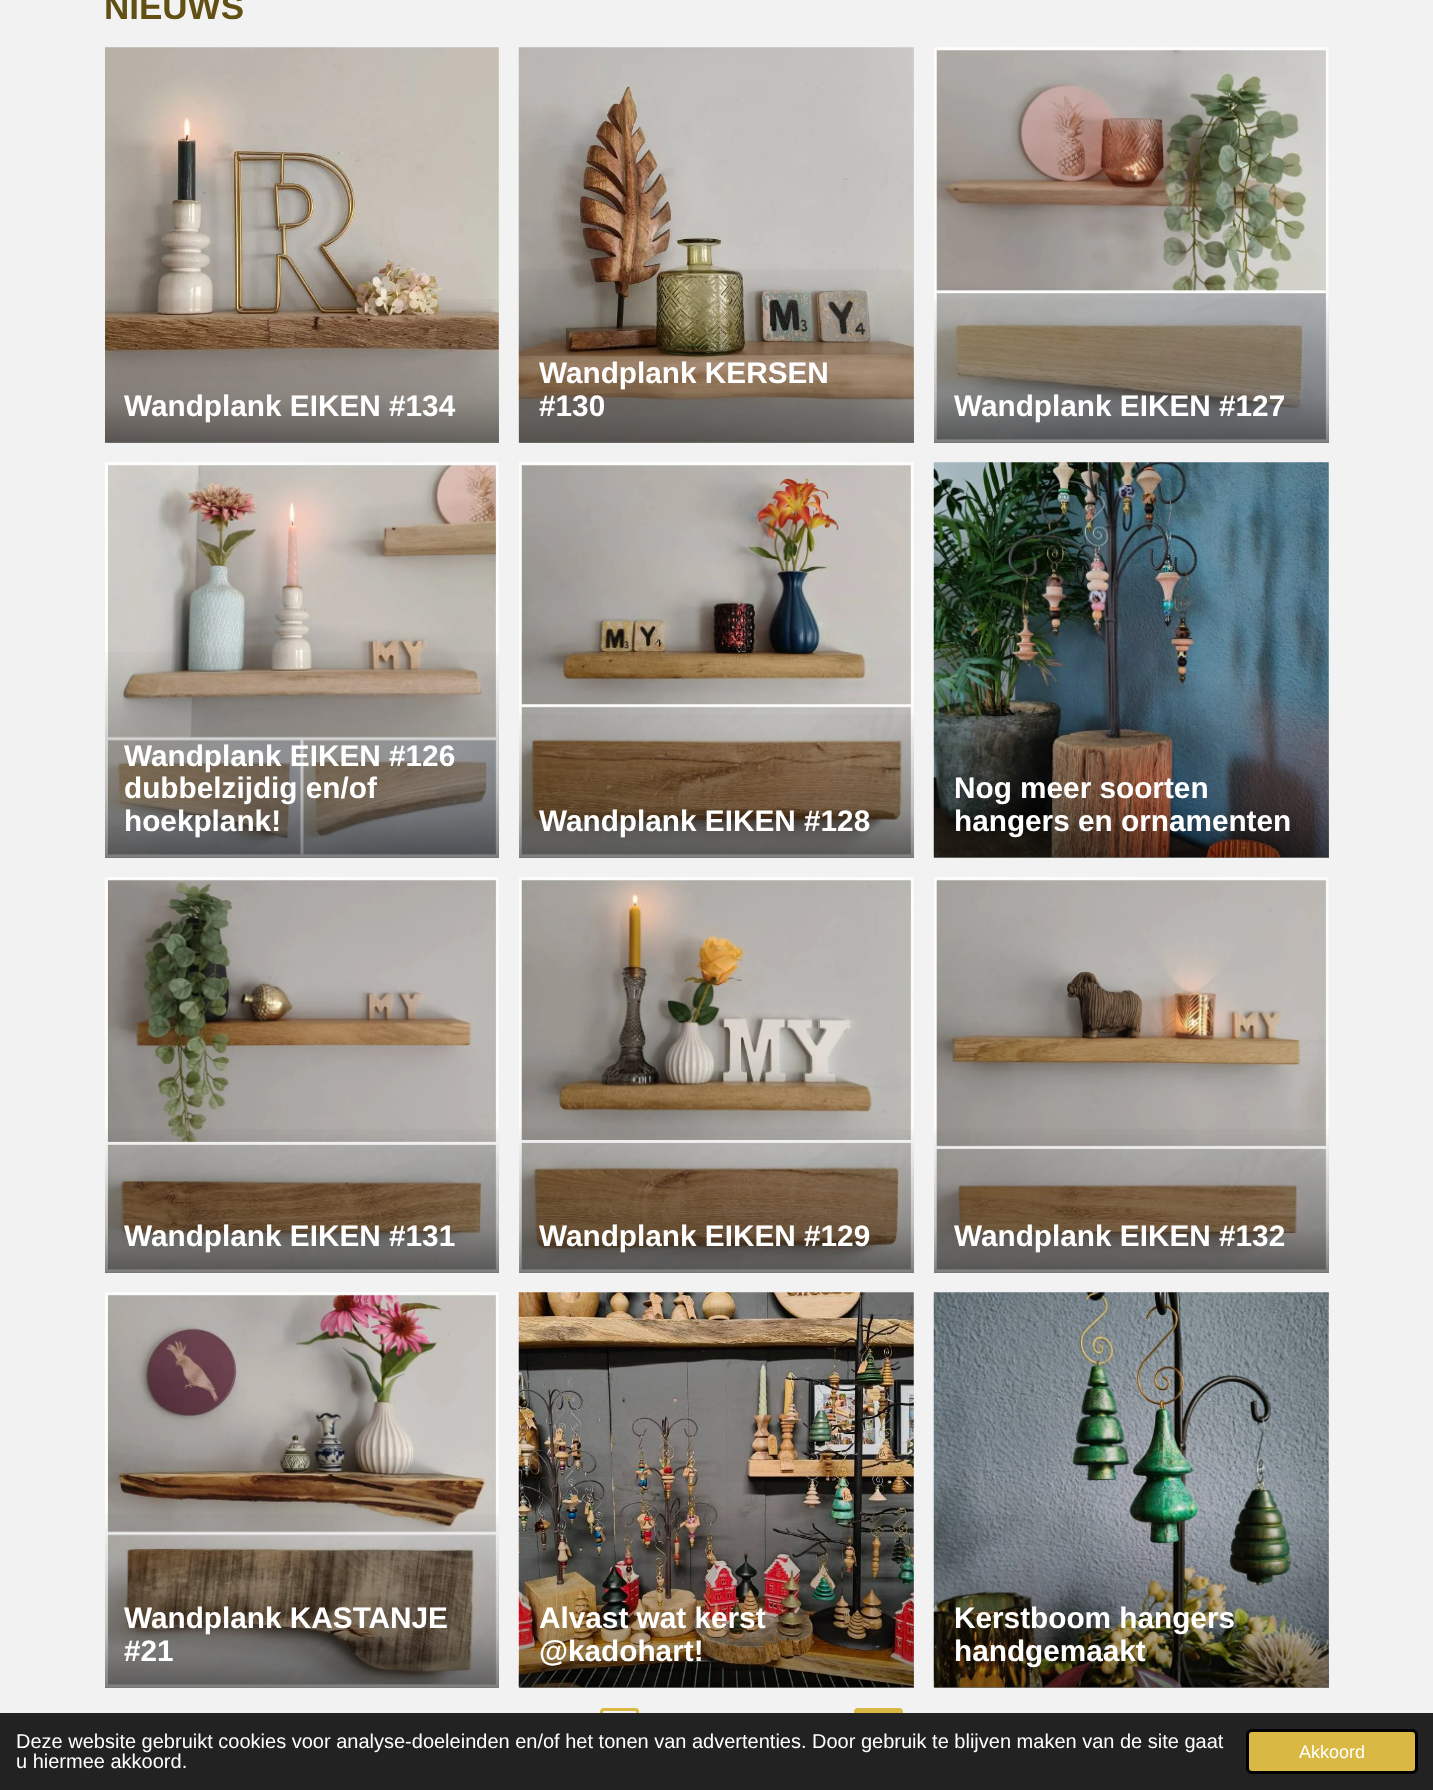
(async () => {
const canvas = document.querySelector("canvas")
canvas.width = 1433
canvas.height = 1790
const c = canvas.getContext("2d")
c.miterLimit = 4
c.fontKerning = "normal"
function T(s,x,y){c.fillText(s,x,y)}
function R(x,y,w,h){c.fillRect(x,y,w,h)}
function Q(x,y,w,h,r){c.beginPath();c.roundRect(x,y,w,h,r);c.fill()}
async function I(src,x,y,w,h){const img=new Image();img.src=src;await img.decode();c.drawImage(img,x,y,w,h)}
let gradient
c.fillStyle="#f2f2f2"
R(0,0,1433,1790)
c.font="bold 35px Liberation Sans"
c.fillStyle="#614f13"
T("NIEUWS",104,19)
c.strokeStyle="#e6e5e0"
c.strokeRect(105.5,48.5,393,394)
await I("1.png",105,47,394,396)
gradient = c.createLinearGradient(302,443,302,290)
gradient.addColorStop(0,"#00000080")
gradient.addColorStop(.3,"#00000040")
gradient.addColorStop(1,"#00000000")
c.fillStyle = gradient
R(105,299,394,144)
c.font="bold 29.75px Liberation Sans"
c.fillStyle="#fff"
T("Wandplank EIKEN #134",124,416)
c.strokeRect(519.5,48.5,394,394)
await I("2.png",518,47,396,396)
gradient = c.createLinearGradient(716,443,716,258)
gradient.addColorStop(0,"#00000080")
gradient.addColorStop(.3,"#00000040")
gradient.addColorStop(1,"#00000000")
c.fillStyle = gradient
R(519,269,395,174)
c.fillStyle="#fff"
T("Wandplank KERSEN",539,383)
T("#130",539,416)
c.strokeRect(934.5,48.5,394,394)
await I("3.png",934,47,395,396)
gradient = c.createLinearGradient(1131,443,1131,290)
gradient.addColorStop(0,"#00000080")
gradient.addColorStop(.3,"#00000040")
gradient.addColorStop(1,"#00000000")
c.fillStyle = gradient
R(934,299,395,144)
c.fillStyle="#fff"
T("Wandplank EIKEN #127",954,416)
c.strokeRect(105.5,463.5,393,394)
await I("4.png",105,462,394,396)
gradient = c.createLinearGradient(302,858,302,639)
gradient.addColorStop(0,"#00000080")
gradient.addColorStop(.3,"#00000040")
gradient.addColorStop(1,"#00000000")
c.fillStyle = gradient
R(105,652,394,206)
c.fillStyle="#fff"
T("Wandplank EIKEN #126",124,766)
T("dubbelzijdig en/of",124,798)
T("hoekplank!",124,831)
c.strokeRect(519.5,463.5,394,394)
await I("5.png",519,462,395,396)
gradient = c.createLinearGradient(716,858,716,705)
gradient.addColorStop(0,"#00000080")
gradient.addColorStop(.3,"#00000040")
gradient.addColorStop(1,"#00000000")
c.fillStyle = gradient
R(519,714,395,144)
c.fillStyle="#fff"
T("Wandplank EIKEN #128",539,831)
c.strokeRect(934.5,463.5,394,394)
await I("6.png",933,462,396,396)
gradient = c.createLinearGradient(1131,858,1131,673)
gradient.addColorStop(0,"#00000080")
gradient.addColorStop(.3,"#00000040")
gradient.addColorStop(1,"#00000000")
c.fillStyle = gradient
R(934,684,395,174)
c.fillStyle="#fff"
T("Nog meer soorten",954,798)
T("hangers en ornamenten",954,831)
c.strokeRect(105.5,878.5,393,394)
await I("7.png",105,877,394,396)
gradient = c.createLinearGradient(302,1273,302,1120)
gradient.addColorStop(0,"#00000080")
gradient.addColorStop(.3,"#00000040")
gradient.addColorStop(1,"#00000000")
c.fillStyle = gradient
R(105,1129,394,144)
c.fillStyle="#fff"
T("Wandplank EIKEN #131",124,1246)
c.strokeRect(519.5,878.5,394,394)
await I("8.png",519,877,395,396)
gradient = c.createLinearGradient(716,1273,716,1120)
gradient.addColorStop(0,"#00000080")
gradient.addColorStop(.3,"#00000040")
gradient.addColorStop(1,"#00000000")
c.fillStyle = gradient
R(519,1129,395,144)
c.fillStyle="#fff"
T("Wandplank EIKEN #129",539,1246)
c.strokeRect(934.5,878.5,394,394)
await I("9.png",934,877,395,396)
gradient = c.createLinearGradient(1131,1273,1131,1120)
gradient.addColorStop(0,"#00000080")
gradient.addColorStop(.3,"#00000040")
gradient.addColorStop(1,"#00000000")
c.fillStyle = gradient
R(934,1129,395,144)
c.fillStyle="#fff"
T("Wandplank EIKEN #132",954,1246)
c.strokeRect(105.5,1293.5,393,394)
await I("10.png",105,1292,394,396)
gradient = c.createLinearGradient(302,1688,302,1503)
gradient.addColorStop(0,"#00000080")
gradient.addColorStop(.3,"#00000040")
gradient.addColorStop(1,"#00000000")
c.fillStyle = gradient
R(105,1514,394,174)
c.fillStyle="#fff"
T("Wandplank KASTANJE",124,1628)
T("#21",124,1661)
c.strokeRect(519.5,1293.5,394,394)
await I("11.png",518,1292,396,396)
gradient = c.createLinearGradient(716,1688,716,1503)
gradient.addColorStop(0,"#00000080")
gradient.addColorStop(.3,"#00000040")
gradient.addColorStop(1,"#00000000")
c.fillStyle = gradient
R(519,1514,395,174)
c.fillStyle="#fff"
T("Alvast wat kerst",539,1628)
T("@kadohart!",539,1661)
c.strokeRect(934.5,1293.5,394,394)
await I("12.png",933,1292,396,396)
gradient = c.createLinearGradient(1131,1688,1131,1503)
gradient.addColorStop(0,"#00000080")
gradient.addColorStop(.3,"#00000040")
gradient.addColorStop(1,"#00000000")
c.fillStyle = gradient
R(934,1514,395,174)
c.fillStyle="#fff"
T("Kerstboom hangers",954,1628)
T("handgemaakt",954,1661)
c.beginPath()
c.roundRect(601.5,1709.5,36,44,2.5)
c.strokeStyle="#dab844"
c.lineWidth=3
c.stroke()
c.fillStyle="#dab844"
Q(854,1708,49,47,4)
c.fillStyle="#222"
R(0,1713,1433,77)
c.font="20px Liberation Sans"
c.fillStyle="#fff"
T("Deze website gebruikt cookies voor analyse-doeleinden en/of het tonen van advertenties. Door gebruik te blijven maken van de site gaat",16,1748)
T("u hiermee akkoord.",16,1768)
c.fillStyle="#dab844"
c.beginPath()
c.roundRect(1247.5,1730.5,169,42,4.5)
c.fill()
c.strokeStyle="#000"
c.stroke()
c.font="18px Liberation Sans"
c.fillStyle="#fff"
T("Akkoord",1299,1758)
})()
